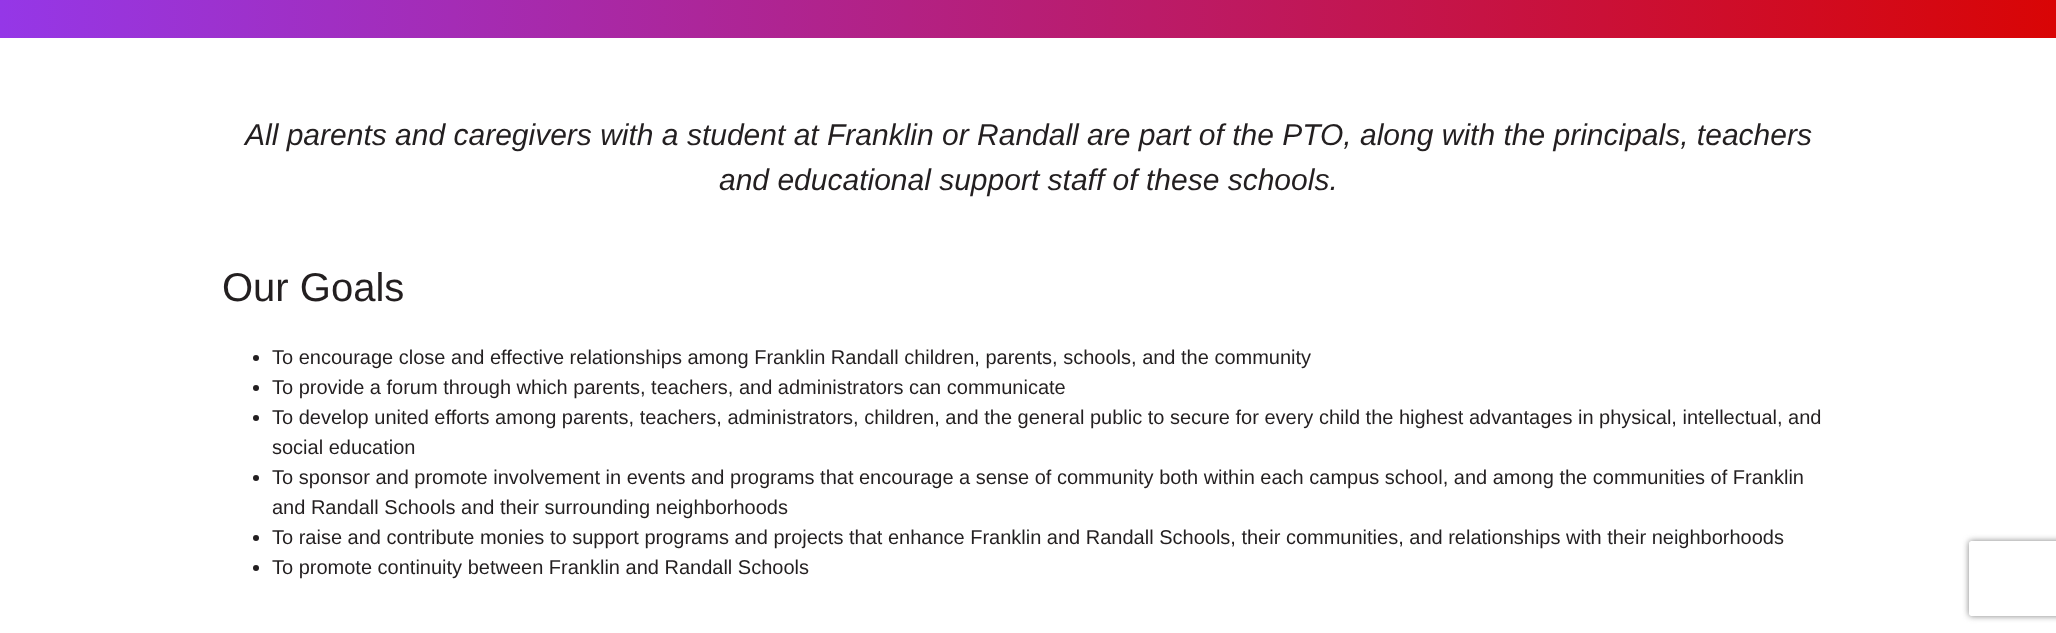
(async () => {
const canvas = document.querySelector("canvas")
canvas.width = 2056
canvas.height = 633
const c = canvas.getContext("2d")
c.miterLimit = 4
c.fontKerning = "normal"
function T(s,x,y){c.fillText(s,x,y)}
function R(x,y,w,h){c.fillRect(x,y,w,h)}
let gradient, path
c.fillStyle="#fff"
R(0,0,2056,633)
gradient = c.createLinearGradient(0,-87,2056,-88)
gradient.addColorStop(0,"#9537e7")
gradient.addColorStop(1,"#d90505")
c.fillStyle = gradient
R(0,0,2056,38)
c.font="italic 30px Liberation Sans"
c.fillStyle="#231f20"
T("All parents and caregivers with a student at Franklin or Randall are part of the PTO, along with the principals, teachers",245,145)
T("and educational support staff of these schools.",719,190)
c.font="40px Liberation Sans"
T("Our Goals",222,301)
c.beginPath()
c.arc(256,358,3,0,7)
c.fill()
c.font="20px Liberation Sans"
T("To encourage close and effective relationships among Franklin Randall children, parents, schools, and the community",272,364)
c.beginPath()
c.arc(256,388,3,0,7)
c.fill()
T("To provide a forum through which parents, teachers, and administrators can communicate",272,394)
c.beginPath()
c.arc(256,418,3,0,7)
c.fill()
T("To develop united efforts among parents, teachers, administrators, children, and the general public to secure for every child the highest advantages in physical, intellectual, and",272,424)
T("social education",272,454)
c.beginPath()
c.arc(256,478,3,0,7)
c.fill()
T("To sponsor and promote involvement in events and programs that encourage a sense of community both within each campus school, and among the communities of Franklin",272,484)
T("and Randall Schools and their surrounding neighborhoods",272,514)
c.beginPath()
c.arc(256,538,3,0,7)
c.fill()
T("To raise and contribute monies to support programs and projects that enhance Franklin and Randall Schools, their communities, and relationships with their neighborhoods",272,544)
c.beginPath()
c.arc(256,568,3,0,7)
c.fill()
T("To promote continuity between Franklin and Randall Schools",272,574)
c.save()
path = new Path2D("M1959 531h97v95h-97zm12.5 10h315c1.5 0 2.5 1 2.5 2.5v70c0 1.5-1 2.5-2.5 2.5h-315c-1.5 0-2.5-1-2.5-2.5v-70c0-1.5 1-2.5 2.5-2.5z")
c.clip(path,"evenodd")
c.fillStyle="#808080"
c.filter="blur(3px)"
c.beginPath()
c.roundRect(1969,541,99,75,2.5)
c.fill()
c.filter="none"
c.restore()
})()
